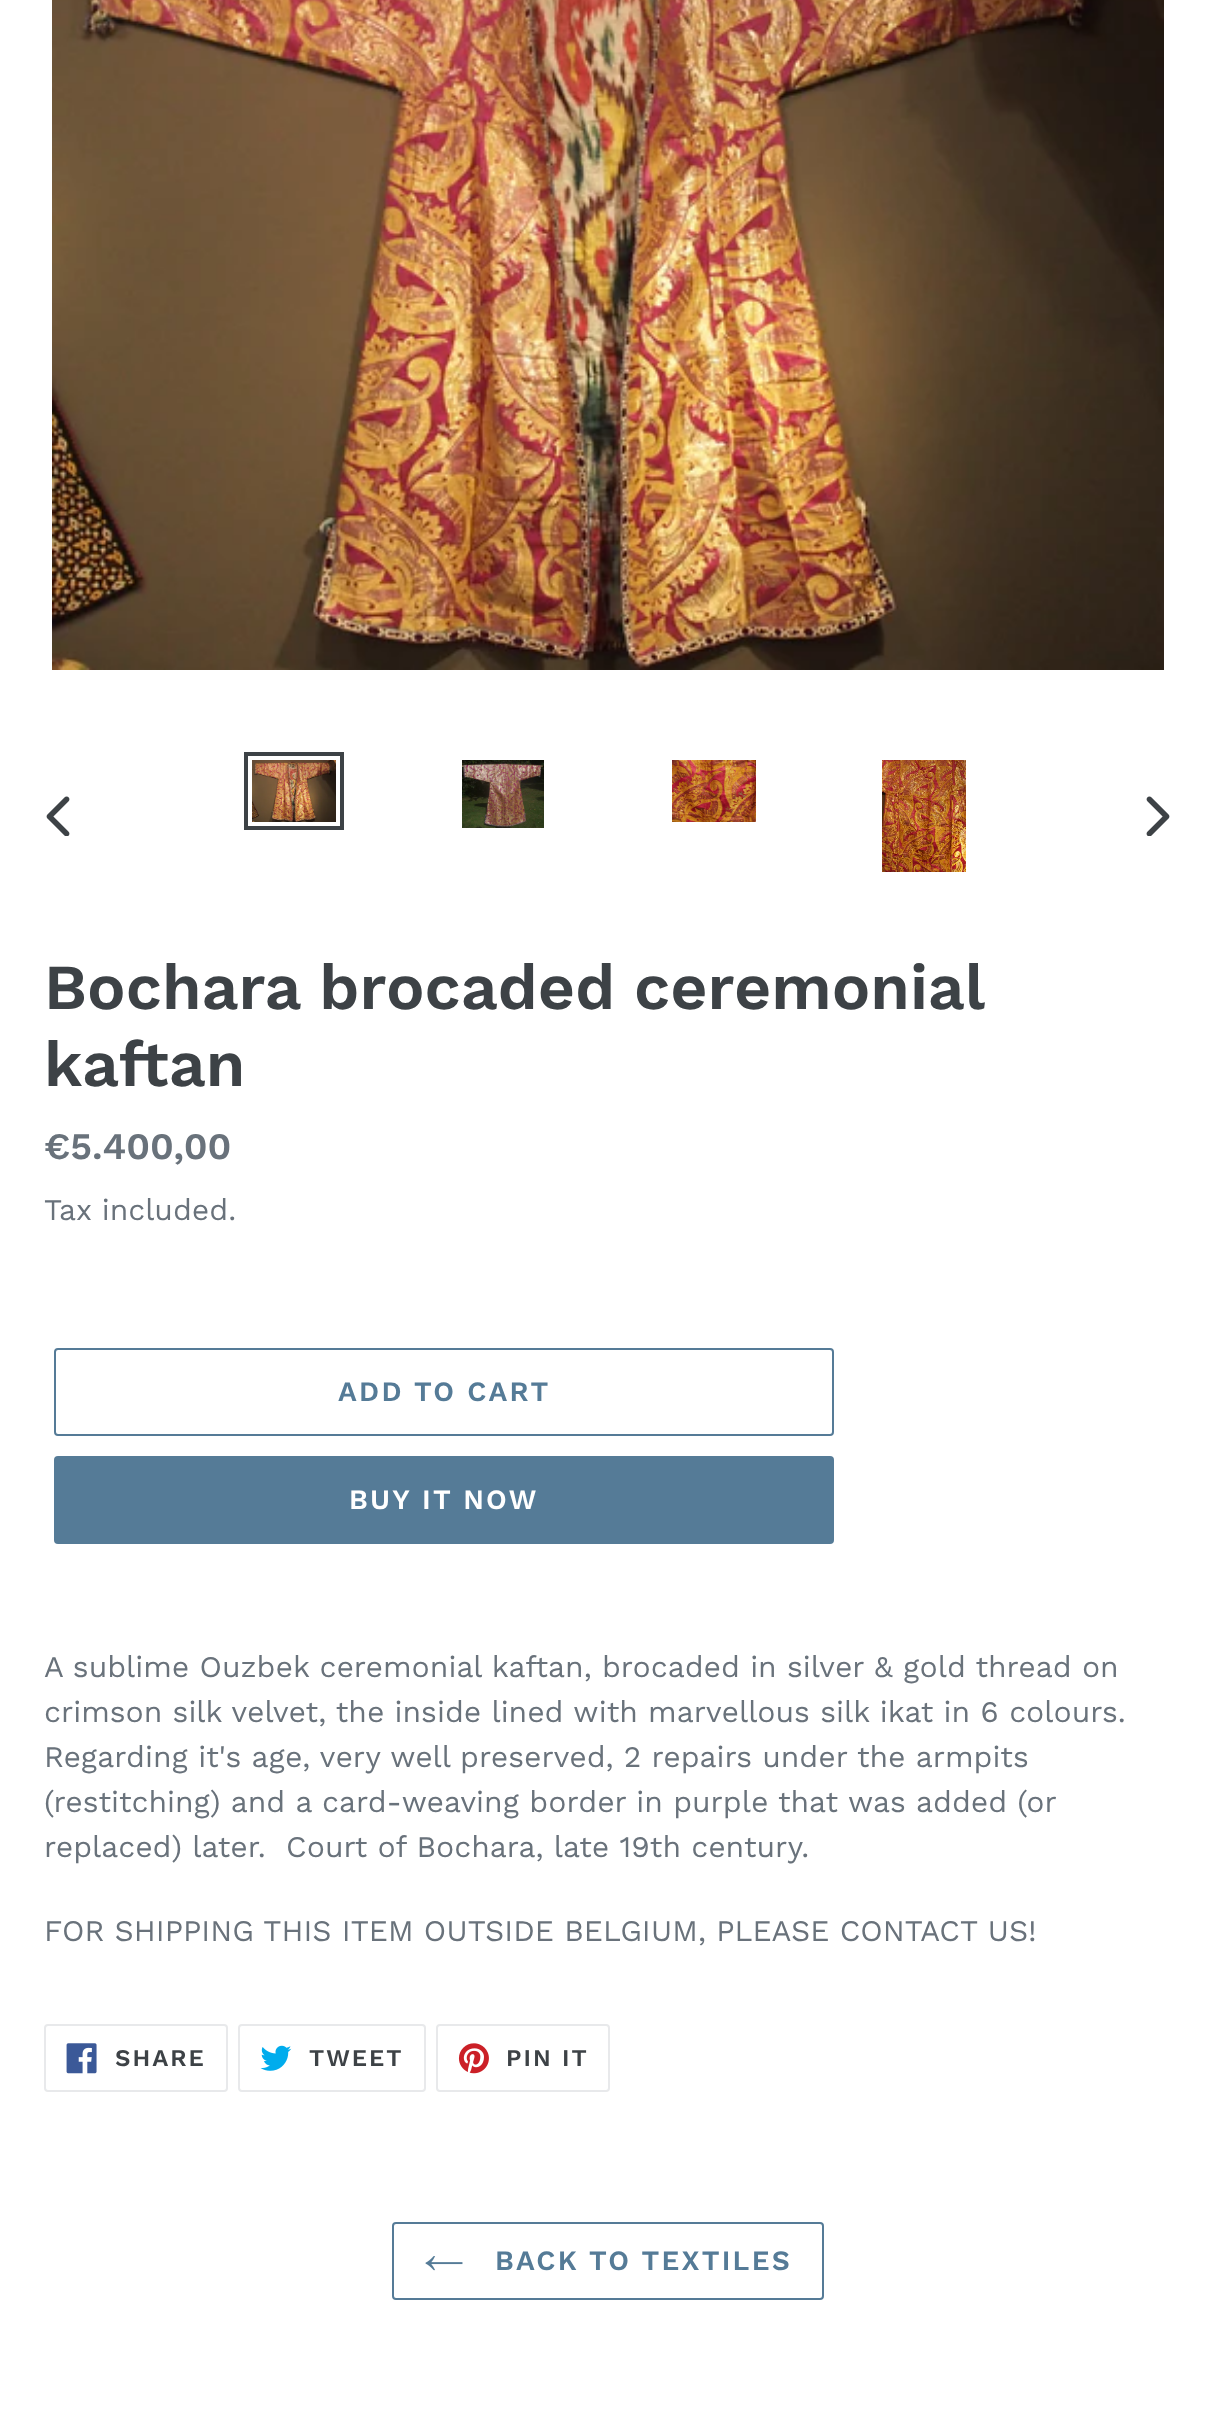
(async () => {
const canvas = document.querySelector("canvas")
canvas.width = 1216
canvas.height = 2414
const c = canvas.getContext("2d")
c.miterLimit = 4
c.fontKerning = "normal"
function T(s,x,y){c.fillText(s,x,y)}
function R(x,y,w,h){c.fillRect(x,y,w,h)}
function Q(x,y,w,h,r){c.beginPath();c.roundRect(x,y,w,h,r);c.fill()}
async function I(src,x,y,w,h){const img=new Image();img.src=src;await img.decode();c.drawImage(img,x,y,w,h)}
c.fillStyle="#fff"
R(0,0,1216,2414)
await I("1.png",52,0,1112,670)
await I("2.png",46,796,24,40)
c.strokeStyle="#3d4246"
c.lineWidth=4
c.strokeRect(246,754,96,74)
await I("3.png",252,760,84,62)
await I("4.png",462,760,82,68)
await I("5.png",672,760,84,62)
await I("6.png",882,760,84,112)
await I("7.png",1146,796,24,40)
c.wordSpacing="-1px"
c.font="600 64px Work Sans"
c.fillStyle="#3d4246"
T("Bochara brocaded ceremonial",44,1009)
c.wordSpacing="0px"
T("kaftan",44,1086)
c.font="600 37.5px Work Sans"
c.fillStyle="#69727b"
T("€5.400,00",44,1159)
c.font="30px Work Sans"
T("Tax included.",44,1220)
c.beginPath()
c.roundRect(55,1349,778,86,3)
c.strokeStyle="#557b97"
c.lineWidth=2
c.stroke()
c.letterSpacing="2.25px"
c.font="600 28px Work Sans"
c.fillStyle="#557b97"
T("ADD TO CART",338,1401)
Q(54,1456,780,88,4)
c.fillStyle="#fff"
T("BUY IT NOW",349,1509)
c.letterSpacing="0px"
c.font="30px Work Sans"
c.fillStyle="#69727b"
T("A sublime Ouzbek ceremonial kaftan, brocaded in silver & gold thread on",44,1677)
T("crimson silk velvet, the inside lined with marvellous silk ikat in 6 colours.",44,1722)
T("Regarding it's age, very well preserved, 2 repairs under the armpits",44,1767)
T("(restitching) and a card-weaving border in purple that was added (or",44,1812)
T("replaced) later.  Court of Bochara, late 19th century.",44,1857)
T("FOR SHIPPING THIS ITEM OUTSIDE BELGIUM, PLEASE CONTACT US!",44,1941)
c.beginPath()
c.roundRect(45,2025,182,66,3)
c.strokeStyle="#e8e9eb"
c.stroke()
await I("8.png",66,2043,31,31)
c.letterSpacing="2px"
c.font="600 24px Work Sans"
c.fillStyle="#3d4246"
T("SHARE",115,2066)
c.beginPath()
c.roundRect(239,2025,186,66,3)
c.stroke()
await I("9.png",260,2045,32,26)
T("TWEET",309,2066)
c.beginPath()
c.roundRect(437,2025,172,66,3)
c.stroke()
await I("10.png",458,2043,31,31)
T("PIN IT",506,2066)
c.beginPath()
c.roundRect(393,2223,430,76,3)
c.strokeStyle="#557b97"
c.stroke()
await I("11.png",425,2256,38,15)
c.letterSpacing="2.25px"
c.font="600 28px Work Sans"
c.fillStyle="#557b97"
T("BACK TO TEXTILES",495,2270)
})()
